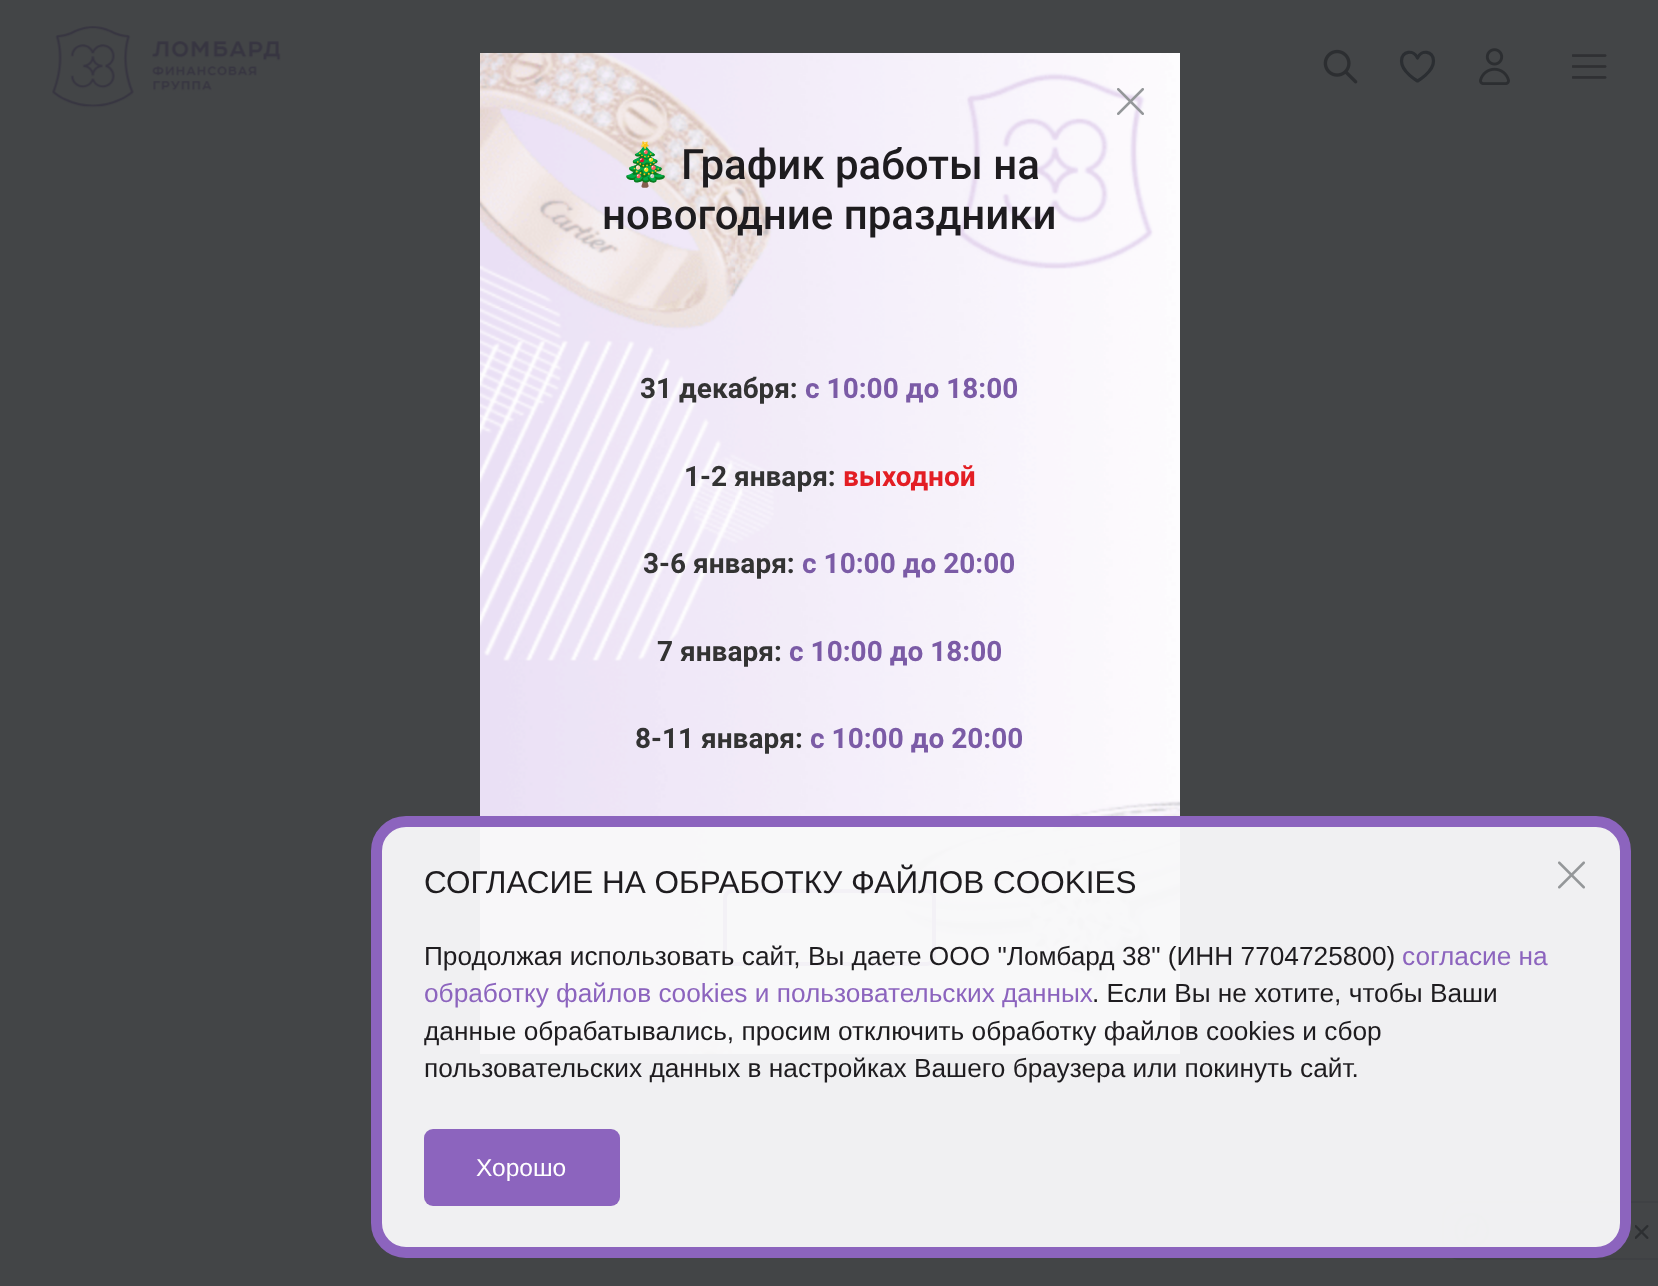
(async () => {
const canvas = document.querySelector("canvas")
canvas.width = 1658
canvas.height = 1286
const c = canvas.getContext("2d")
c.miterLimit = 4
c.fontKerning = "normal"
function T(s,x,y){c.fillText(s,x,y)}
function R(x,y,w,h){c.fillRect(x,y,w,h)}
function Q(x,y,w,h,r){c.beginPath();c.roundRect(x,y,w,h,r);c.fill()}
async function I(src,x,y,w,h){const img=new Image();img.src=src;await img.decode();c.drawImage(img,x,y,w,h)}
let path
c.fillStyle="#434547"
R(0,0,1658,1286)
await I("1.png",52,26,229,82)
await I("2.png",1323,49,35,35)
path = new Path2D("M1417.5 58c-3.5-8.5-16-7.5-16 3c0 11 16 20 16 20c0 0 16-9 16-20c0-10.5-12.5-11.5-16-3z")
c.strokeStyle="#2b2e32"
c.lineWidth=3.2
c.lineCap="round"
c.lineJoin="round"
c.stroke(path)
await I("3.png",1479,48,31,37)
await I("4.png",1572,54,35,25)
await I("5.png",480,53,700,1001)
await I("6.png",1117,88,27,27)
c.font="42px Noto Color Emoji"
c.fillStyle="#1e1c1f"
T("🎄",619,179)
c.font="500 42px Roboto"
T("График работы на",681,179)
T("новогодние праздники",602,229)
c.font="bold 28px Roboto"
c.fillStyle="#333"
T("31 декабря:",640,398)
c.fillStyle="#7b5ba6"
T("с 10:00 до 18:00",805,398)
c.fillStyle="#333"
T("1-2 января:",684,486)
c.fillStyle="#e31e24"
T("выходной",843,486)
c.fillStyle="#333"
T("3-6 января:",643,573)
c.fillStyle="#7b5ba6"
T("с 10:00 до 20:00",802,573)
c.fillStyle="#333"
T("7 января:",657,661)
c.fillStyle="#7b5ba6"
T("с 10:00 до 18:00",789,661)
c.fillStyle="#333"
T("8-11 января:",635,748)
c.fillStyle="#7b5ba6"
T("с 10:00 до 20:00",810,748)
c.beginPath()
c.roundRect(725,891,209,73,7)
c.strokeStyle="#7b58a6"
c.lineWidth=4
c.lineJoin="miter"
c.stroke()
c.beginPath()
c.roundRect(1443,1202,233,57,18)
c.strokeStyle="#3f4144"
c.lineWidth=2
c.stroke()
await I("8.png",1454,1213,35,34)
c.fillStyle="#f8f8f9f5"
c.beginPath()
c.roundRect(376.5,821.5,1249,431,29.5)
c.fill()
c.strokeStyle="#8c64be"
c.lineWidth=11
c.stroke()
c.font="31.5px Liberation Sans"
c.fillStyle="#1e1c1f"
T("СОГЛАСИЕ НА ОБРАБОТКУ ФАЙЛОВ COOKIES",424,893)
c.font="26.25px Liberation Sans"
T("Продолжая использовать сайт, Вы даете ООО \"Ломбард 38\" (ИНН 7704725800)",424,965)
c.fillStyle="#8c64be"
T("согласие на",1402,965)
T("обработку файлов cookies и пользовательских данных",424,1002)
c.fillStyle="#1e1c1f"
T(". Если Вы не хотите, чтобы Ваши",1092,1002)
T("данные обрабатывались, просим отключить обработку файлов cookies и сбор",424,1040)
T("пользовательских данных в настройках Вашего браузера или покинуть сайт.",424,1077)
await I("7.png",1558,861,27,28)
c.fillStyle="#8c64be"
Q(424,1129,196,77,9)
c.font="24.5px Liberation Sans"
c.fillStyle="#fff"
T("Хорошо",476,1176)
await I("9.png",1635,1225,14,14)
})()
